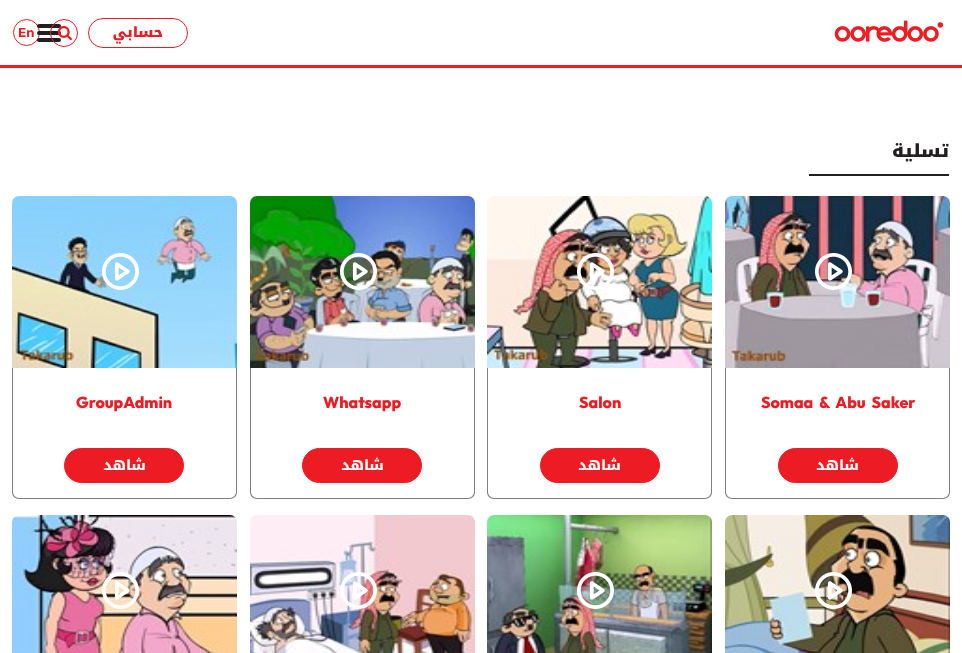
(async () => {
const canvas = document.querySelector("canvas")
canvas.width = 962
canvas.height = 653
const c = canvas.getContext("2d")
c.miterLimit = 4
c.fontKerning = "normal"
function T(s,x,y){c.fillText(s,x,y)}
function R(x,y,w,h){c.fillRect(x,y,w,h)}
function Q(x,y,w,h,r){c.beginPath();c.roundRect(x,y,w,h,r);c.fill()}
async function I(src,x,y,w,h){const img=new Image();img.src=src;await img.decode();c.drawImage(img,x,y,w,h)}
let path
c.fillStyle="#fff"
R(0,0,962,653)
c.fillStyle="#ed1c24"
R(0,65,962,3)
c.beginPath()
c.arc(26.5,32.5,13,0,7)
c.strokeStyle="#ed1c24"
c.stroke()
c.fillStyle="#221f20"
Q(37,38,24,4,2)
Q(37,31,24,4,2)
Q(37,24,24,4,2)
await I("1.png",834,20,110,22)
c.font="600 13px Rubik"
c.fillStyle="#ed1c24"
T("En",18,37)
c.beginPath()
c.arc(64,33,13.5,0,7)
c.stroke()
await I("2.png",57,25,15,16)
c.beginPath()
c.roundRect(88.5,18.5,99,29,14.5)
c.stroke()
c.direction="rtl"
c.font="900 14px Noto Kufi Arabic"
T("حسابي",163,37)
c.font="900 18px Noto Kufi Arabic"
c.fillStyle="#221f20"
T("تسلية",949,157)
R(809,174,140,2)
await I("3.png",12,196,225,172)
await I("4.png",102,253,37,37)
c.fillStyle="#808080"
path = new Path2D("M12 368h225v124c0 4-3 7-7 7h-211c-4 0-7-3-7-7zm1 0h223v124c0 3-3 6-6 6h-211c-3 0-6-3-6-6z")
c.fill(path,"evenodd")
c.direction="ltr"
c.font="800 16px Outfit"
c.fillStyle="#ed1c24"
T("GroupAdmin",76,408)
c.beginPath()
c.roundRect(64.5,448.5,119,34,17)
c.fill()
c.stroke()
c.direction="rtl"
c.font="800 14px Noto Kufi Arabic"
c.fillStyle="#fff"
T("شاهد",146,470)
await I("5.png",250,196,225,172)
await I("6.png",340,253,37,37)
c.fillStyle="#808080"
path = new Path2D("M250 368h225v124c0 4-3 7-7 7h-211c-4 0-7-3-7-7zm1 0h223v124c0 3-3 6-6 6h-211c-3 0-6-3-6-6z")
c.fill(path,"evenodd")
c.direction="ltr"
c.font="800 16px Outfit"
c.fillStyle="#ed1c24"
T("Whatsapp",323,408)
c.beginPath()
c.roundRect(302.5,448.5,119,34,17)
c.fill()
c.stroke()
c.direction="rtl"
c.font="800 14px Noto Kufi Arabic"
c.fillStyle="#fff"
T("شاهد",384,470)
await I("7.png",487,196,225,172)
await I("8.png",577,253,37,37)
c.fillStyle="#808080"
path = new Path2D("M487 368h225v124c0 4-3 7-7 7h-211c-4 0-7-3-7-7zm1 0h223v124c0 3-3 6-6 6h-211c-3 0-6-3-6-6z")
c.fill(path,"evenodd")
c.direction="ltr"
c.font="800 16px Outfit"
c.fillStyle="#ed1c24"
T("Salon",579,408)
c.beginPath()
c.roundRect(540.5,448.5,119,34,17)
c.fill()
c.stroke()
c.direction="rtl"
c.font="800 14px Noto Kufi Arabic"
c.fillStyle="#fff"
T("شاهد",621,470)
await I("9.png",725,196,225,172)
await I("10.png",815,253,37,37)
c.fillStyle="#808080"
path = new Path2D("M725 368h225v124c0 4-3 7-7 7h-211c-4 0-7-3-7-7zm1 0h223v124c0 3-3 6-6 6h-211c-3 0-6-3-6-6z")
c.fill(path,"evenodd")
c.wordSpacing="3px"
c.direction="ltr"
c.font="800 16px Outfit"
c.fillStyle="#ed1c24"
T("Somaa & Abu Saker",761,408)
c.beginPath()
c.roundRect(778.5,448.5,119,34,17)
c.fill()
c.stroke()
c.wordSpacing="0px"
c.direction="rtl"
c.font="800 14px Noto Kufi Arabic"
c.fillStyle="#fff"
T("شاهد",859,470)
await I("11.png",12,515,225,138)
await I("12.png",102,572,37,37)
await I("13.png",250,515,225,138)
await I("14.png",340,572,37,37)
await I("15.png",487,515,225,138)
await I("16.png",577,572,37,37)
await I("17.png",725,515,225,138)
await I("18.png",815,572,37,37)
})()
